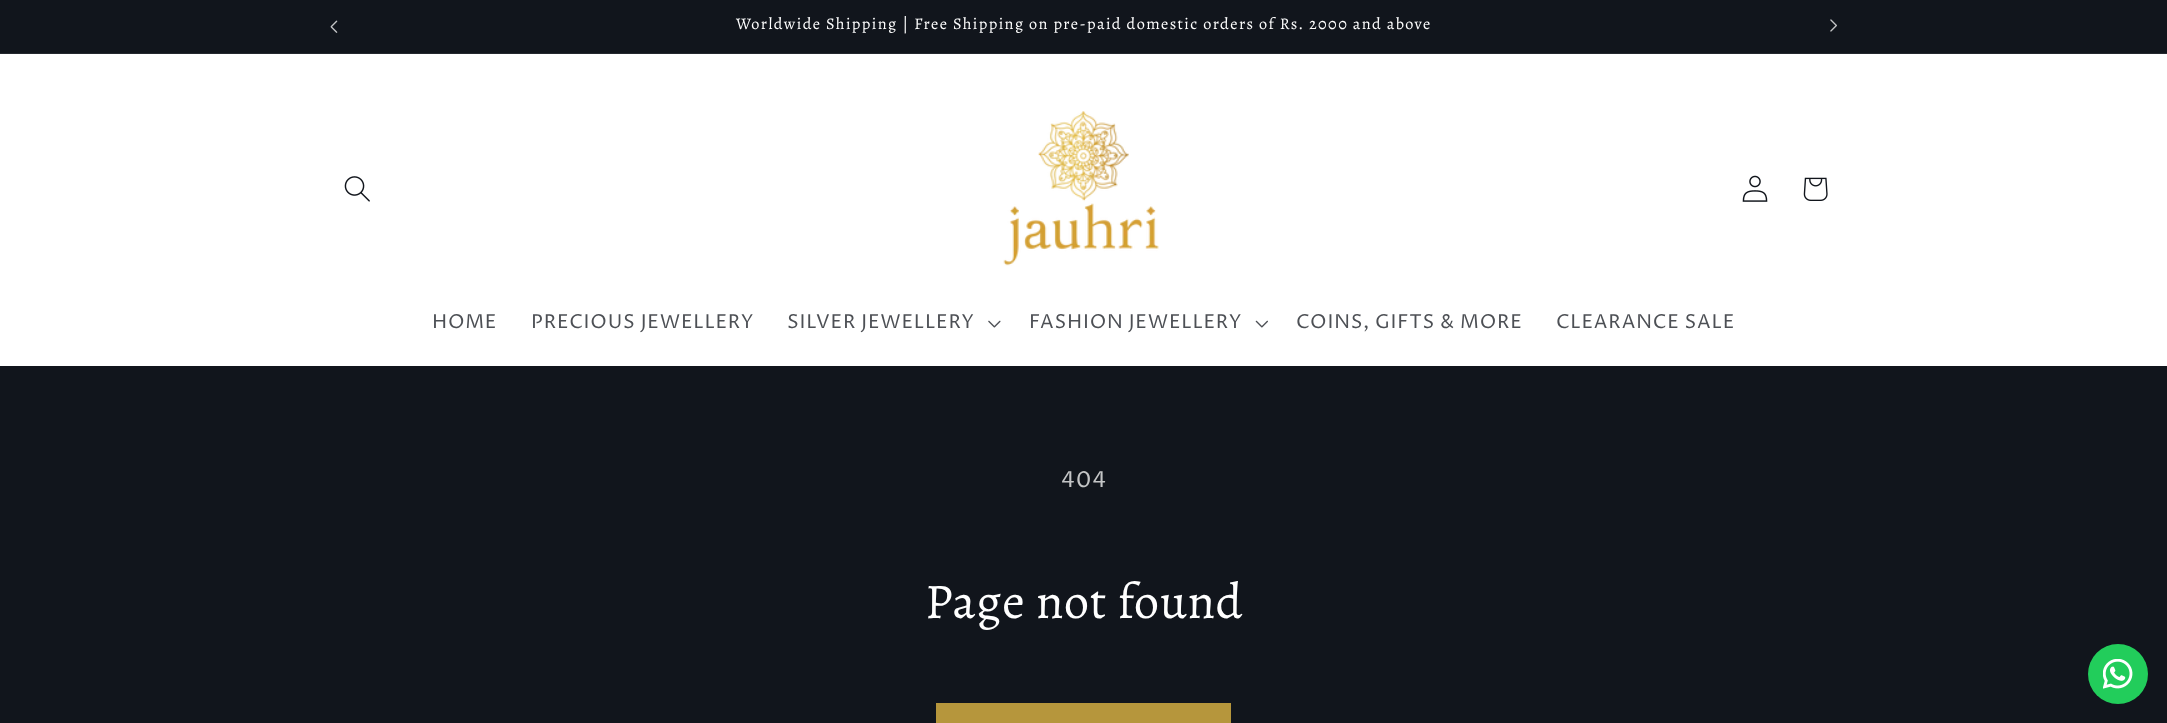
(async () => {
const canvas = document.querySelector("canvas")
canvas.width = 2167
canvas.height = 723
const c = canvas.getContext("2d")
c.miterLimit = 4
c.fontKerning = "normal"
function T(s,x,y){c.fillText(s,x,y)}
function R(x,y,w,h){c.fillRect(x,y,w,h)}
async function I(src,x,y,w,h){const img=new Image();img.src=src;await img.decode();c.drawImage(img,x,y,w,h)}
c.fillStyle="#11151c"
R(0,0,2167,723)
c.fillStyle="#24282e"
R(0,53,2167,1)
await I("1.png",330,20,8,13)
c.letterSpacing="1.38px"
c.font="16.25px Alegreya"
c.fillStyle="#fff"
T("Worldwide Shipping | Free Shipping on pre-paid domestic orders of Rs. 2000 and above",736,29)
await I("2.png",1830,19,7,13)
R(0,54,2167,312)
await I("3.png",344,176,26,26)
await I("4.png",1003,111,156,155)
await I("5.png",1742,175,26,27)
await I("6.png",1803,177,25,24)
c.letterSpacing="0.8px"
c.font="19.25px Proza Libre"
c.fillStyle="#4d5055"
T("HOME",432,328)
T("PRECIOUS JEWELLERY",531,328)
T("SILVER JEWELLERY",787,328)
await I("7.png",988,320,13,8)
T("FASHION JEWELLERY",1029,328)
await I("8.png",1255,320,13,8)
T("COINS, GIFTS & MORE",1296,328)
T("CLEARANCE SALE",1556,328)
c.font="22px Proza Libre"
c.fillStyle="#c4c5c6"
T("404",1061,487)
c.letterSpacing="0.75px"
c.font="50px Alegreya"
c.fillStyle="#fff"
T("Page not found",925,618)
c.fillStyle="#b6963c"
R(936,703,295,20)
c.fillStyle="#22cd5b"
c.beginPath()
c.arc(2118,674,30,0,7)
c.fill()
await I("9.png",2103,659,30,30)
})()
